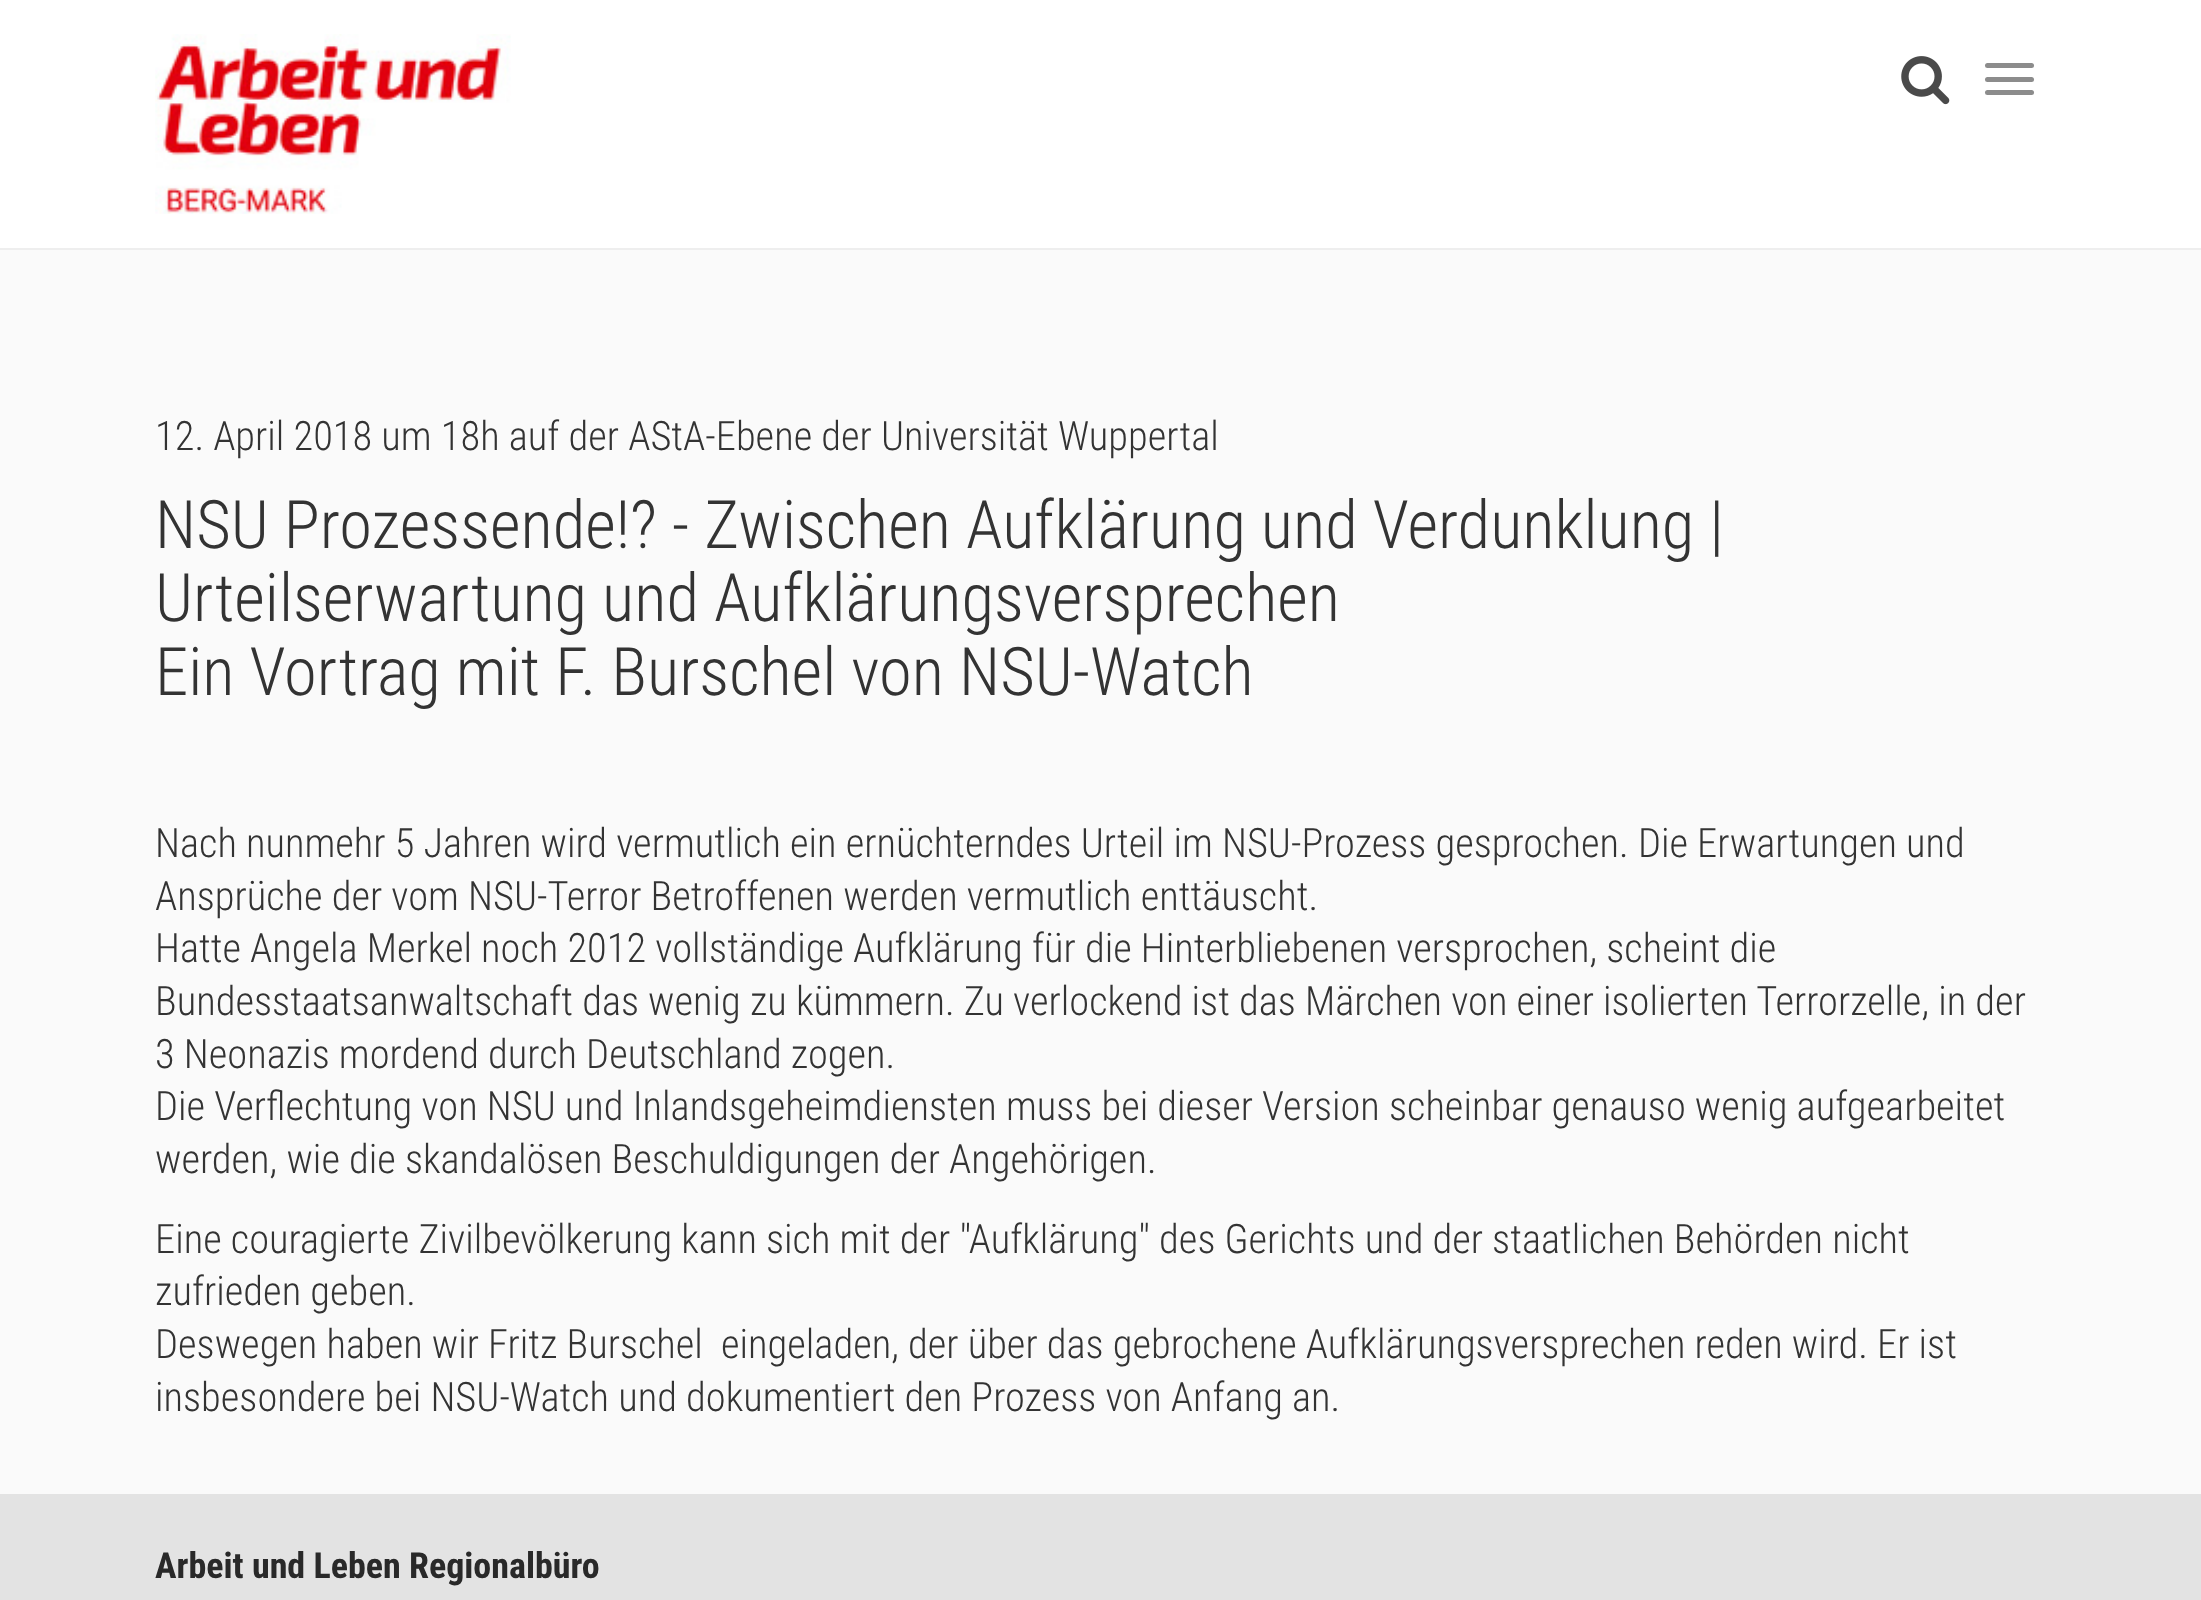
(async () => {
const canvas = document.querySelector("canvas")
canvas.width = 2201
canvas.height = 1600
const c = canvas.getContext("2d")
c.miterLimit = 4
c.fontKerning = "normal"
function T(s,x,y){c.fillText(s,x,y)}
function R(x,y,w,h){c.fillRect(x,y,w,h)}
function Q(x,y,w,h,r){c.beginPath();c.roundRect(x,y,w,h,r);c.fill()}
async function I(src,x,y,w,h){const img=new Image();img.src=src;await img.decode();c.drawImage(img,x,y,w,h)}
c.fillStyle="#fff"
R(0,0,2201,1600)
c.fillStyle="#eee"
R(0,248,2201,2)
await I("1.png",155,34,356,180)
await I("2.png",1901,56,49,49)
c.fillStyle="#8c8c8c"
Q(1985,63,49,5,2.5)
Q(1985,77,49,5,2.5)
Q(1985,90,49,5,2.5)
c.fillStyle="#fafafa"
R(0,250,2201,1244)
c.font="300 40.5px Roboto Condensed"
c.fillStyle="#333"
T("12. April 2018 um 18h auf der AStA-Ebene der Universität Wuppertal",155,450)
c.font="300 66.8px Roboto Condensed"
T("NSU Prozessende!? - Zwischen Aufklärung und Verdunklung |",155,548)
T("Urteilserwartung und Aufklärungsversprechen",155,621)
T("Ein Vortrag mit F. Burschel von NSU-Watch",155,695)
c.font="300 40.5px Roboto Condensed"
T("Nach nunmehr 5 Jahren wird vermutlich ein ernüchterndes Urteil im NSU-Prozess gesprochen. Die Erwartungen und",155,857)
T("Ansprüche der vom NSU-Terror Betroffenen werden vermutlich enttäuscht.",155,910)
T("Hatte Angela Merkel noch 2012 vollständige Aufklärung für die Hinterbliebenen versprochen, scheint die",155,962)
T("Bundesstaatsanwaltschaft das wenig zu kümmern. Zu verlockend ist das Märchen von einer isolierten Terrorzelle, in der",155,1015)
T("3 Neonazis mordend durch Deutschland zogen.",155,1068)
T("Die Verflechtung von NSU und Inlandsgeheimdiensten muss bei dieser Version scheinbar genauso wenig aufgearbeitet",155,1120)
T("werden, wie die skandalösen Beschuldigungen der Angehörigen.",155,1173)
T("Eine couragierte Zivilbevölkerung kann sich mit der \"Aufklärung\" des Gerichts und der staatlichen Behörden nicht",155,1253)
T("zufrieden geben.",155,1305)
T("Deswegen haben wir Fritz Burschel  eingeladen, der über das gebrochene Aufklärungsversprechen reden wird. Er ist",155,1358)
T("insbesondere bei NSU-Watch und dokumentiert den Prozess von Anfang an.",155,1411)
c.fillStyle="#e3e3e3"
R(0,1494,2201,106)
c.font="bold 36px Roboto Condensed"
c.fillStyle="#292929"
T("Arbeit und Leben Regionalbüro",155,1578)
})()
